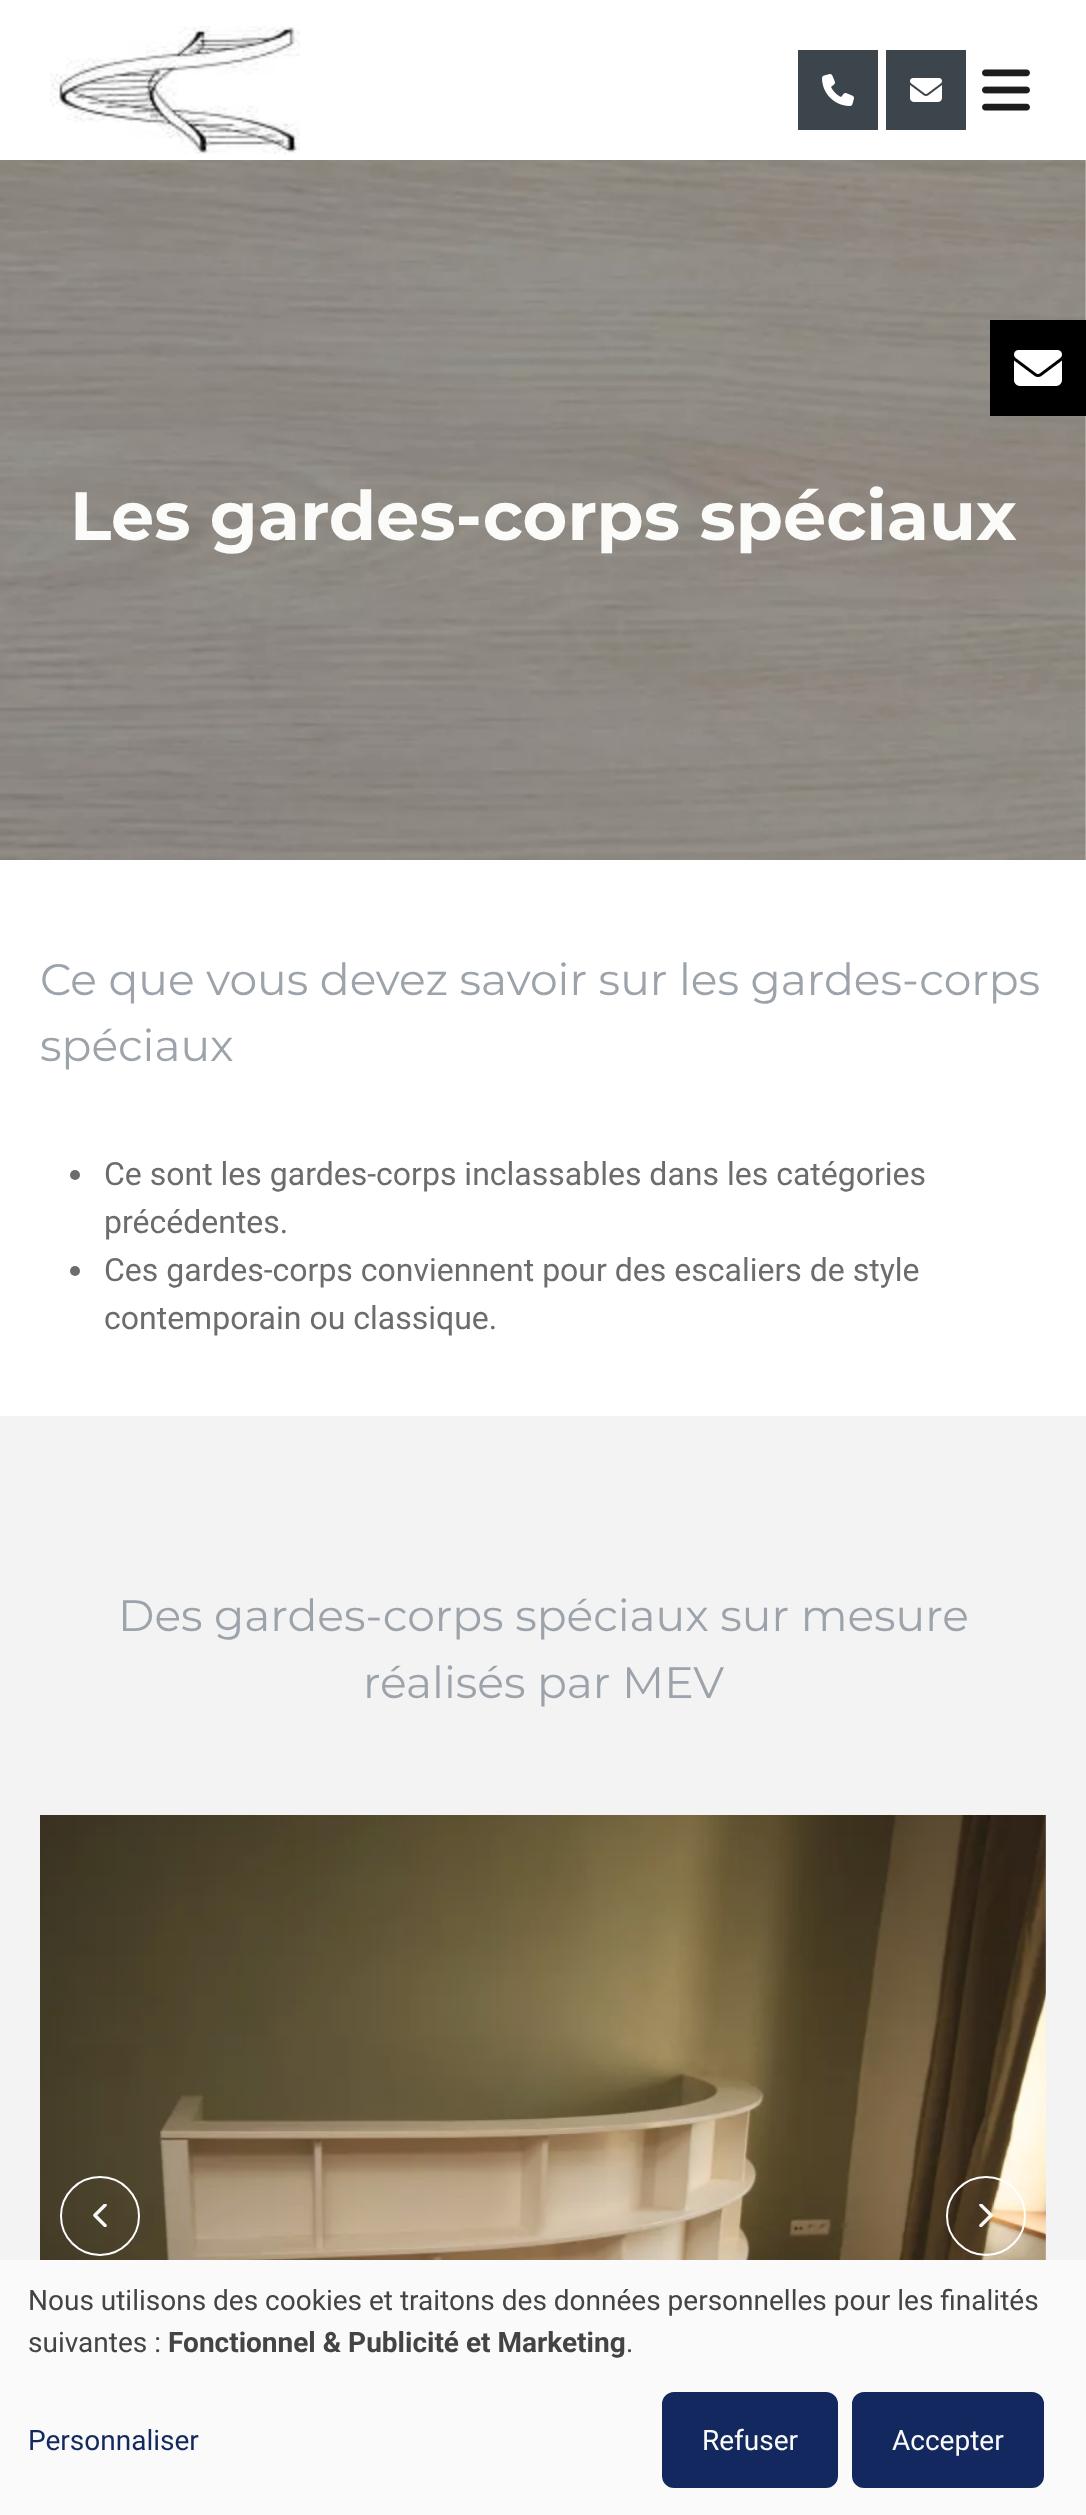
(async () => {
const canvas = document.querySelector("canvas")
canvas.width = 1086
canvas.height = 2515
const c = canvas.getContext("2d")
c.miterLimit = 4
c.fontKerning = "normal"
function T(s,x,y){c.fillText(s,x,y)}
function R(x,y,w,h){c.fillRect(x,y,w,h)}
async function I(src,x,y,w,h){const img=new Image();img.src=src;await img.decode();c.drawImage(img,x,y,w,h)}
c.fillStyle="#fff"
R(0,0,1086,2515)
await I("1.png",50,26,250,128)
c.fillStyle="#3c454c"
R(798,50,80,80)
await I("2.png",822,74,32,32)
R(886,50,80,80)
await I("3.png",910,78,32,24)
await I("4.png",982,69,48,42)
c.fillStyle="#f3f3f3"
R(0,160,1086,700)
await I("6.png",0,160,1086,700)
c.fillStyle="#000"
R(990,320,96,96)
await I("5.png",1014,350,48,36)
c.font="bold 68.4px Montserrat"
c.fillStyle="#fbfbfa"
T("Les gardes-corps spéciaux",70,540)
c.font="44.1px Montserrat"
c.fillStyle="#9da3ab"
T("Ce que vous devez savoir sur les gardes-corps",40,995)
T("spéciaux",40,1061)
c.fillStyle="#6c6c6c"
c.beginPath()
c.arc(75,1175,5,0,7)
c.fill()
c.font="32px Roboto"
T("Ce sont les gardes-corps inclassables dans les catégories",104,1185)
T("précédentes.",104,1233)
c.beginPath()
c.arc(75,1271,5,0,7)
c.fill()
T("Ces gardes-corps conviennent pour des escaliers de style",104,1281)
T("contemporain ou classique.",104,1329)
c.fillStyle="#f3f3f3"
R(0,1416,1086,844)
c.font="44.1px Montserrat"
c.fillStyle="#9da3ab"
T("Des gardes-corps spéciaux sur mesure",118,1631)
T("réalisés par MEV",363,1698)
await I("7.png",40,1815,1006,445)
c.beginPath()
c.arc(100,2216,39,0,7)
c.strokeStyle="#fff"
c.lineWidth=2
c.stroke()
await I("8.png",93,2204,14,23)
c.beginPath()
c.arc(986,2216,39,0,7)
c.stroke()
await I("9.png",979,2204,14,23)
c.fillStyle="#fafafa"
R(0,2260,1086,255)
c.font="28px Roboto"
c.fillStyle="#444"
T("Nous utilisons des cookies et traitons des données personnelles pour les finalités",28,2310)
T("suivantes :",28,2352)
c.font="bold 28px Roboto"
T("Fonctionnel & Publicité et Marketing",168,2352)
c.font="28px Roboto"
T(".",626,2352)
c.fillStyle="#12285f"
T("Personnaliser",28,2450)
c.beginPath()
c.roundRect(665,2395,170,90,9)
c.fill()
c.strokeStyle="#12285f"
c.lineWidth=6
c.stroke()
c.fillStyle="#fbfbfa"
T("Refuser",702,2450)
c.fillStyle="#12285f"
c.beginPath()
c.roundRect(855,2395,186,90,9)
c.fill()
c.stroke()
c.fillStyle="#fbfbfa"
T("Accepter",892,2450)
})()
